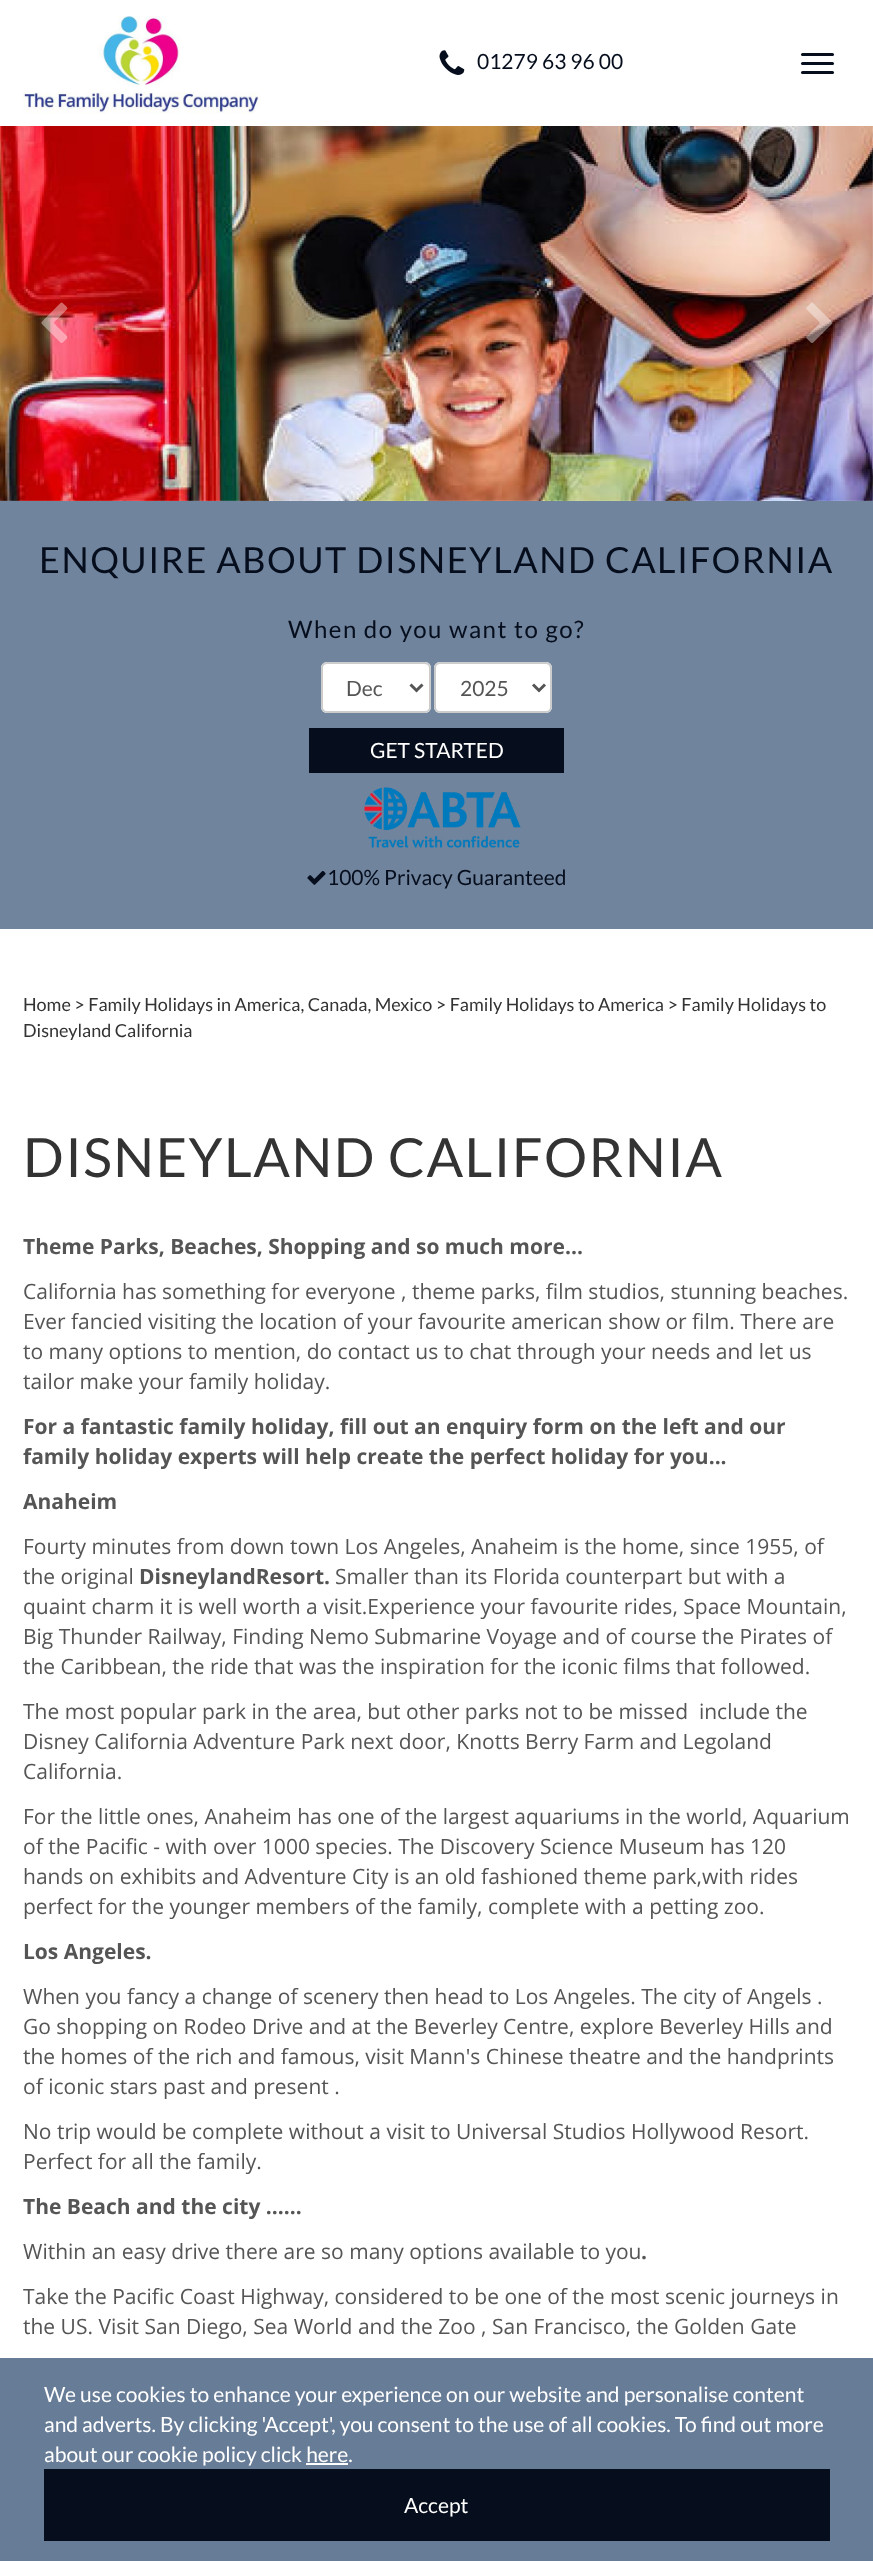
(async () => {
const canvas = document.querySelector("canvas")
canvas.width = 873
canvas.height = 2561
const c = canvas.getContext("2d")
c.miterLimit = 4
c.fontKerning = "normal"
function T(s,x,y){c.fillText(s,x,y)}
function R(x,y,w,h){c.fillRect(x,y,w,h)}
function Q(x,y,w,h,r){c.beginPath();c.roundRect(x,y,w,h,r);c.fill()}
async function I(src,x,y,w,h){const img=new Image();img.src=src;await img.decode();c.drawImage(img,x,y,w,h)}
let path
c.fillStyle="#fff"
R(0,0,873,2561)
await I("1.png",22,16,239,98)
await I("2.png",439,50,26,25)
c.font="21px Lato"
c.fillStyle="#060e1d"
T("01279 63 96 00",477,69)
Q(801,53,33,3,1.5)
Q(801,62,33,3,1.5)
Q(801,71,33,3,1.5)
await I("3.png",0,126,873,375)
await I("4.png",41,302,27,41)
await I("5.png",806,302,27,41)
c.fillStyle="#70849d"
R(0,501,873,428)
c.letterSpacing="1.5px"
c.font="36px Lato"
c.fillStyle="#060e1d"
T("ENQUIRE ABOUT DISNEYLAND CALIFORNIA",39,573)
c.font="24px Lato"
T("When do you want to go?",288,638)
c.fillStyle="#fff"
Q(321,662,110,51,6)
c.fillStyle="#ececec"
path = new Path2D("M327 664h97c3 0 5 3 5 5v-1c0-3-2-5-5-5h-96c-2 0-4 1-5 3c1-1 3-2 4-2z")
c.fill(path)
c.beginPath()
c.roundRect(322,663,108,49,5)
c.strokeStyle="#ccc"
c.lineWidth=2
c.stroke()
path = new Path2D("M410.5 684.5l6 6l6-6")
c.strokeStyle="#555"
c.lineWidth=3
c.stroke(path)
c.letterSpacing="0px"
c.font="21px Lato"
c.fillStyle="#555"
T("Dec",346,696)
c.fillStyle="#fff"
Q(434,662,118,51,6)
c.fillStyle="#ececec"
path = new Path2D("M440 664h106c2 0 4 3 4 5v40c1-1 1-2 1-3v-38c0-3-2-5-5-5h-106c-3 0-5 2-5 5v1c0-2 2-5 5-5z")
c.fill(path)
c.beginPath()
c.roundRect(435,663,116,49,5)
c.strokeStyle="#ccc"
c.lineWidth=2
c.stroke()
path = new Path2D("M533 684.5l6 6l6-6")
c.strokeStyle="#555"
c.lineWidth=3
c.stroke(path)
c.fillStyle="#555"
T("2025",460,696)
c.fillStyle="#060e1d"
R(309,728,255,45)
c.fillStyle="#fff"
T("GET STARTED",370,758)
await I("6.png",364,787,157,61)
await I("7.png",307,871,19,14)
c.fillStyle="#060e1d"
T("100% Privacy Guaranteed",327,885)
c.font="18px Lato"
c.fillStyle="#333"
T("Home > Family Holidays in America, Canada, Mexico > Family Holidays to America > Family Holidays to",23,1011)
T("Disneyland California",23,1037)
c.letterSpacing="1.5px"
c.font="54px Lato"
T("DISNEYLAND CALIFORNIA",23,1177)
c.letterSpacing="0px"
c.font="bold 21px Open Sans"
c.fillStyle="#555"
T("Theme Parks, Beaches, Shopping and so much more...",23,1254)
c.font="21px Open Sans"
T("California has something for everyone , theme parks, film studios, stunning beaches.",23,1299)
T("Ever fancied visiting the location of your favourite american show or film. There are",23,1329)
T("to many options to mention, do contact us to chat through your needs and let us",23,1359)
T("tailor make your family holiday.",23,1389)
c.font="bold 21px Open Sans"
T("For a fantastic family holiday, fill out an enquiry form on the left and our",23,1434)
T("family holiday experts will help create the perfect holiday for you...",23,1464)
T("Anaheim",23,1509)
c.font="21px Open Sans"
T("Fourty minutes from down town Los Angeles, Anaheim is the home, since 1955, of",23,1554)
T("the original",23,1584)
c.font="bold 21px Open Sans"
T("DisneylandResort.",139,1584)
c.font="21px Open Sans"
T("Smaller than its Florida counterpart but with a",335,1584)
T("quaint charm it is well worth a visit.Experience your favourite rides, Space Mountain,",23,1614)
T("Big Thunder Railway, Finding Nemo Submarine Voyage and of course the Pirates of",23,1644)
T("the Caribbean, the ride that was the inspiration for the iconic films that followed.",23,1674)
T("The most popular park in the area, but other parks not to be missed  include the",23,1719)
T("Disney California Adventure Park next door, Knotts Berry Farm and Legoland",23,1749)
T("California.",23,1779)
T("For the little ones, Anaheim has one of the largest aquariums in the world, Aquarium",23,1824)
T("of the Pacific - with over 1000 species. The Discovery Science Museum has 120",23,1854)
T("hands on exhibits and Adventure City is an old fashioned theme park,with rides",23,1884)
T("perfect for the younger members of the family, complete with a petting zoo.",23,1914)
c.font="bold 21px Open Sans"
T("Los Angeles.",23,1959)
c.font="21px Open Sans"
T("When you fancy a change of scenery then head to Los Angeles. The city of Angels .",23,2004)
T("Go shopping on Rodeo Drive and at the Beverley Centre, explore Beverley Hills and",23,2034)
T("the homes of the rich and famous, visit Mann's Chinese theatre and the handprints",23,2064)
T("of iconic stars past and present .",23,2094)
T("No trip would be complete without a visit to Universal Studios Hollywood Resort.",23,2139)
T("Perfect for all the family.",23,2169)
c.font="bold 21px Open Sans"
T("The Beach and the city ......",23,2214)
c.font="21px Open Sans"
T("Within an easy drive there are so many options available to you",23,2259)
c.font="bold 21px Open Sans"
T(".",641,2259)
c.font="21px Open Sans"
T("Take the Pacific Coast Highway, considered to be one of the most scenic journeys in",23,2304)
T("the US. Visit San Diego, Sea World and the Zoo , San Francisco, the Golden Gate",23,2334)
c.fillStyle="#677c97"
R(0,2358,873,203)
c.font="21px Lato"
c.fillStyle="#fff"
T("We use cookies to enhance your experience on our website and personalise content",44,2402)
T("and adverts. By clicking 'Accept', you consent to the use of all cookies. To find out more",44,2432)
T("about our cookie policy click here.",44,2462)
R(306,2463,42,2)
c.fillStyle="#060e1d"
R(44,2469,786,72)
c.fillStyle="#fff"
T("Accept",404,2513)
})()
